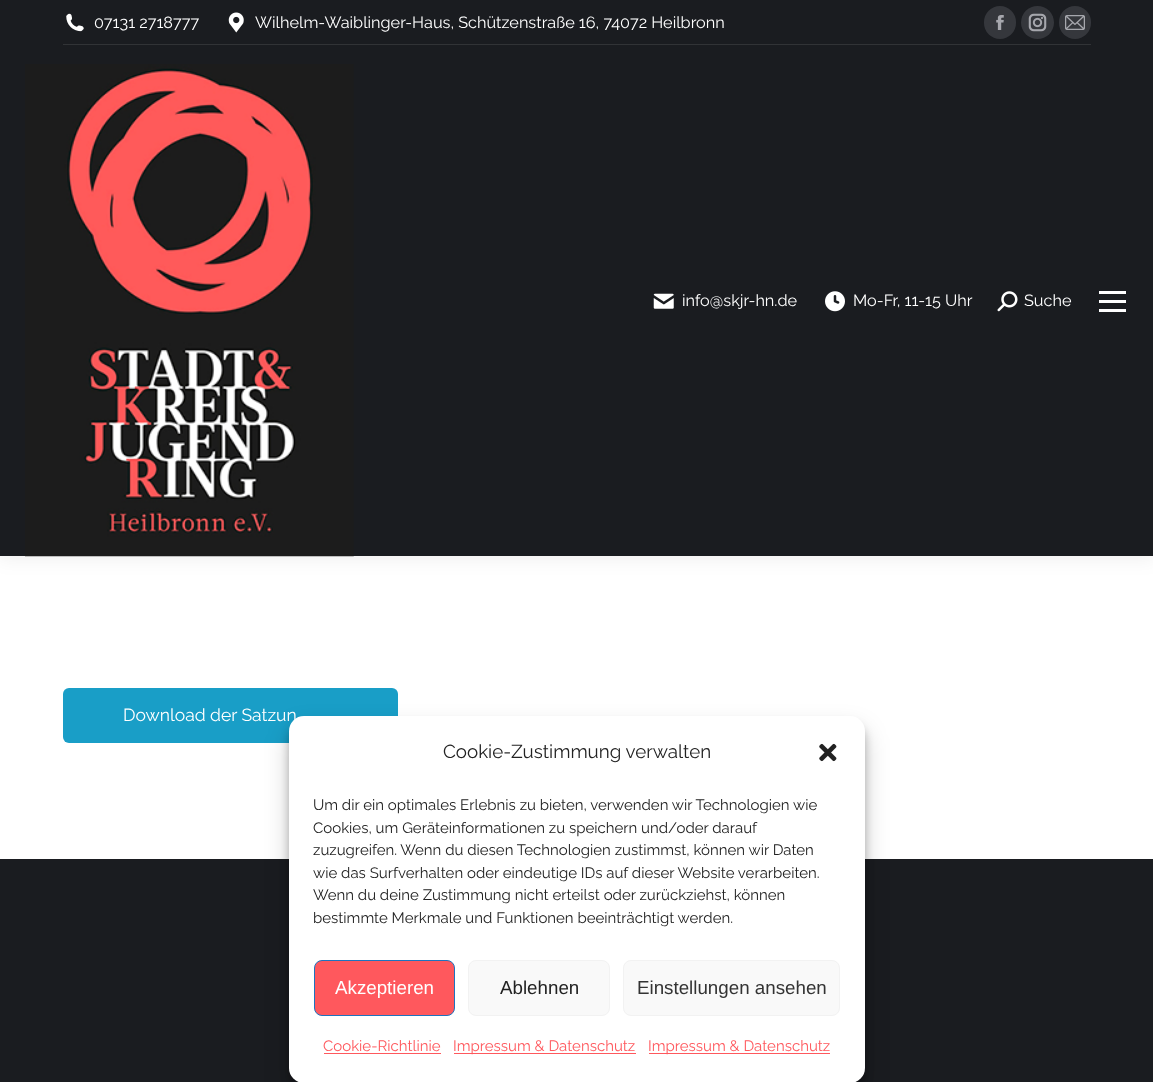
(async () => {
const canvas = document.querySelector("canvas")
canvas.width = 1153
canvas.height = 1082
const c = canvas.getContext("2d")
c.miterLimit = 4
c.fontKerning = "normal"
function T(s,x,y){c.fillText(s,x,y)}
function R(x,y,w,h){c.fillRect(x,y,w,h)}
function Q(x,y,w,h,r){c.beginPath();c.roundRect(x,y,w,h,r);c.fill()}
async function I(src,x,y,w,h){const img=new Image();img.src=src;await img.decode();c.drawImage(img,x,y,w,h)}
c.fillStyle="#fff"
R(0,0,1153,1082)
c.fillStyle="#00000012"
c.filter="blur(9.5px)"
c.beginPath()
c.rect(-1,-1,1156,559)
c.fill()
c.filter="none"
c.fillStyle="#1a1c20"
R(0,0,1153,556)
await I("1.png",66,13,18,19)
c.font="16.25px Raleway"
c.fillStyle="#fff"
T("07131 2718777",94,28)
await I("2.png",228,12,16,21)
T("Wilhelm-Waiblinger-Haus, Schützenstraße 16, 74072 Heilbronn",255,28)
c.fillStyle="#35373c"
Q(984,6,32,33,16)
await I("3.png",996,15,8,15)
c.beginPath()
c.arc(1037.5,22.5,16.5,0,7)
c.fill()
await I("4.png",1028,13,19,19)
Q(1059,6,32,33,16)
await I("5.png",1065,15,20,15)
c.fillStyle="#313336"
R(63,44,1028,1)
await I("6.png",25,64,329,493)
await I("7.png",653,293,21,16)
c.fillStyle="#fff"
T("info@skjr-hn.de",682,306)
await I("8.png",825,291,20,21)
T("Mo-Fr, 11-15 Uhr",853,306)
await I("9.png",997,291,21,21)
T("Suche",1024,306)
R(1099,291,27,3)
R(1099,300,27,3)
R(1099,309,27,3)
c.fillStyle="#199ec7"
Q(63,688,335,55,6)
c.font="17.5px Raleway"
c.fillStyle="#fff"
T("Download der Satzun",123,721)
c.fillStyle="#1a1c20"
R(0,859,1153,223)
c.fillStyle="#0000003b"
c.filter="blur(4px)"
c.beginPath()
c.roundRect(289,724,576,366,15)
c.fill()
c.filter="none"
c.fillStyle="#00000030"
c.filter="blur(12.5px)"
c.beginPath()
c.roundRect(289,729,576,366,15)
c.fill()
c.filter="none"
c.fillStyle="#fff"
Q(289,716,576,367,15)
c.font="18.75px Raleway"
c.fillStyle="#222"
T("Cookie-Zustimmung verwalten",443,758)
await I("10.png",819,743,18,19)
c.font="15px Raleway"
T("Um dir ein optimales Erlebnis zu bieten, verwenden wir Technologien wie",313,810)
T("Cookies, um Geräteinformationen zu speichern und/oder darauf",313,833)
T("zuzugreifen. Wenn du diesen Technologien zustimmst, können wir Daten",313,855)
T("wie das Surfverhalten oder eindeutige IDs auf dieser Website verarbeiten.",313,878)
T("Wenn du deine Zustimmung nicht erteilst oder zurückziehst, können",313,900)
T("bestimmte Merkmale und Funktionen beeinträchtigt werden.",313,923)
c.fillStyle="#ff585d"
c.beginPath()
c.roundRect(314.5,960.5,140,55,7.5)
c.fill()
c.strokeStyle="#1e73be"
c.stroke()
c.font="18.75px Liberation Sans"
c.fillStyle="#fff"
T("Akzeptieren",335,994)
c.fillStyle="#f9f9f9"
c.beginPath()
c.roundRect(468.5,960.5,141,55,7.5)
c.fill()
c.strokeStyle="#f2f2f2"
c.stroke()
c.fillStyle="#222"
T("Ablehnen",500,994)
c.fillStyle="#f9f9f9"
c.beginPath()
c.roundRect(623.5,960.5,216,55,7.5)
c.fill()
c.stroke()
c.fillStyle="#333"
T("Einstellungen ansehen",637,994)
c.font="15px Raleway"
c.fillStyle="#ff585d"
T("Cookie-Richtlinie",323,1051)
R(324,1053,117,1)
R(454,1053,182,1)
T("Impressum & Datenschutz",453,1051)
R(649,1053,181,1)
T("Impressum & Datenschutz",648,1051)
})()
